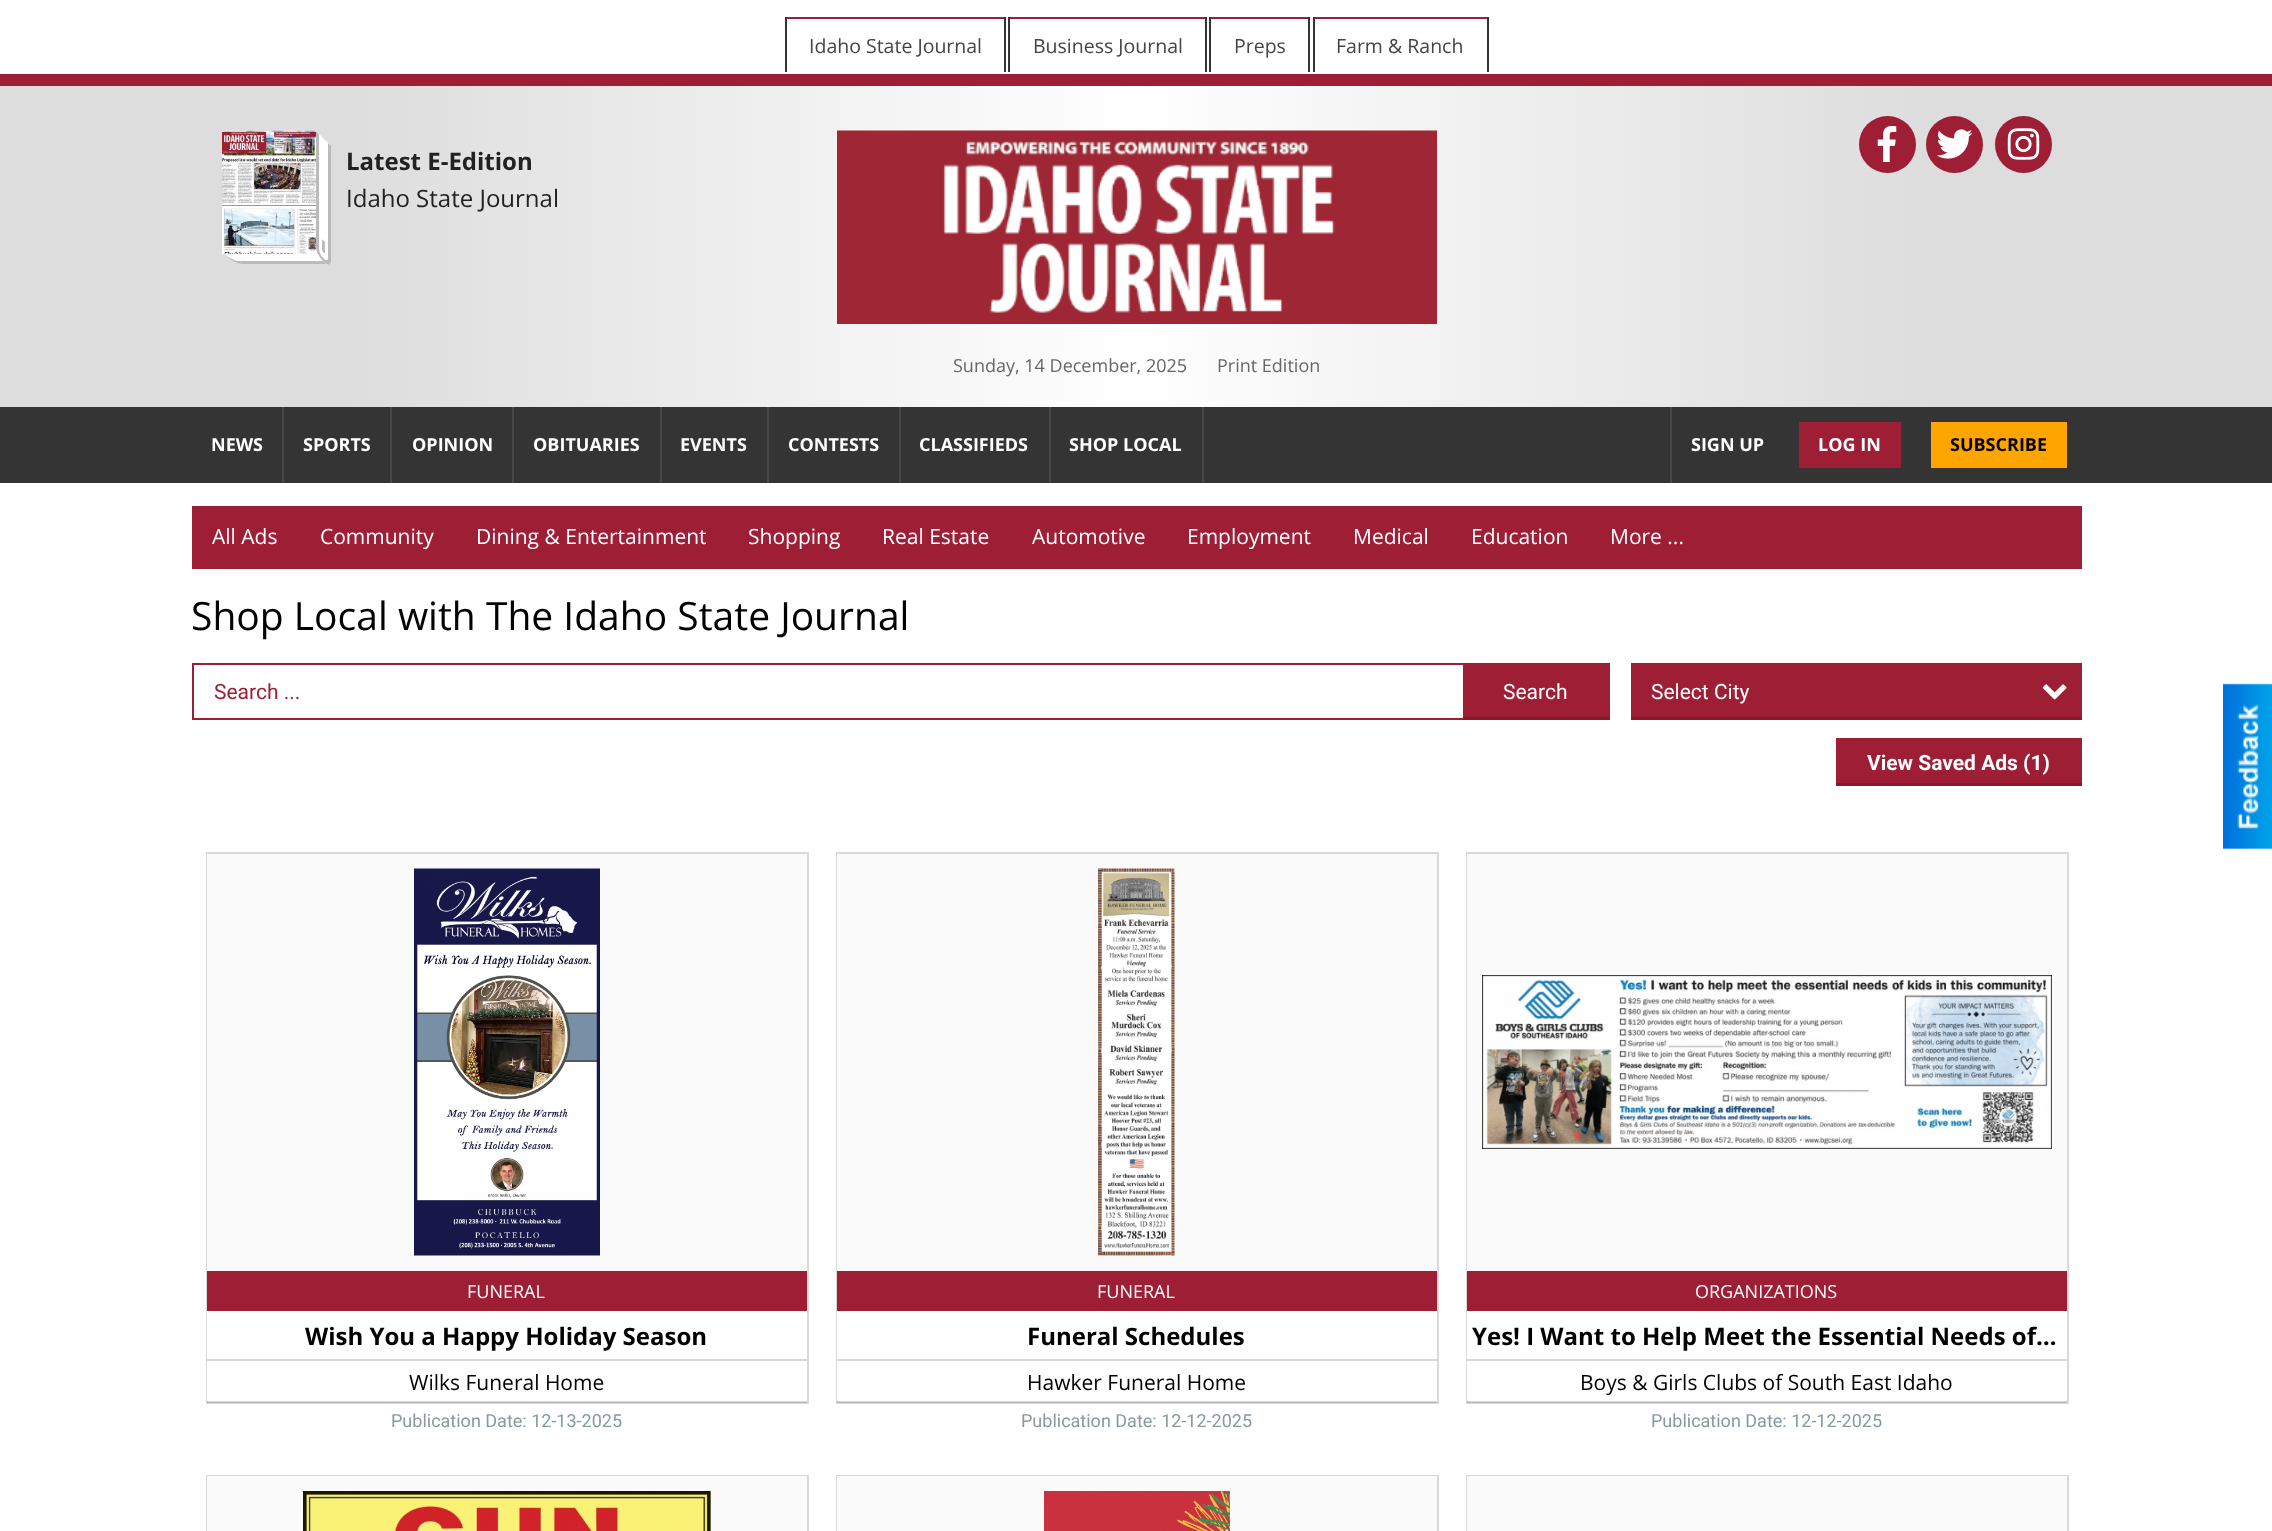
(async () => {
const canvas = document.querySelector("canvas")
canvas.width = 2272
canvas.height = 1531
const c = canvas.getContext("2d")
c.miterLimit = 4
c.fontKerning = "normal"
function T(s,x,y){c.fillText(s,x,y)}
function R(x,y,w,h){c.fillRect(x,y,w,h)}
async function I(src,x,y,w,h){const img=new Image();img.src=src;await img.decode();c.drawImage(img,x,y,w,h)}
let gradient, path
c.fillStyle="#fff"
R(0,0,2272,1531)
c.fillStyle="#9d1e35"
R(785,17,220,2)
c.fillStyle="#343434"
R(1004,17,2,55)
R(785,17,2,55)
c.font="19.5px Open Sans"
c.fillStyle="#444"
T("Idaho State Journal",809,53)
c.fillStyle="#9d1e35"
R(1008,17,198,2)
c.fillStyle="#343434"
R(1205,17,2,55)
R(1008,17,2,55)
c.fillStyle="#444"
T("Business Journal",1033,53)
c.fillStyle="#9d1e35"
R(1209,17,101,2)
c.fillStyle="#343434"
R(1308,17,2,55)
R(1209,17,2,55)
c.fillStyle="#444"
T("Preps",1234,53)
c.fillStyle="#9d1e35"
R(1313,17,175,2)
c.fillStyle="#343434"
R(1487,17,2,55)
R(1313,17,2,55)
c.fillStyle="#444"
T("Farm & Ranch",1336,53)
gradient = c.createLinearGradient(0,246,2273,246)
gradient.addColorStop(.15,"#ddd")
gradient.addColorStop(.5,"#fff")
gradient.addColorStop(.85,"#ddd")
c.fillStyle = gradient
R(0,86,2272,321)
c.fillStyle="#9d1e35"
R(0,74,2272,12)
c.beginPath()
c.arc(1887.5,144.5,28.5,0,7)
c.fill()
await I("1.png",1877,126,20,36)
c.beginPath()
c.arc(1954.5,144.5,28.5,0,7)
c.fill()
await I("2.png",1937,129,36,30)
c.beginPath()
c.arc(2023.5,144.5,28.5,0,7)
c.fill()
await I("3.png",2007,128,33,32)
c.fillStyle="#fff"
R(222,131,95,123)
await I("4.png",222,130,95,124)
c.fillStyle="#bbb"
path = new Path2D("M228 257c4 4 11 7 15 7h87l-3-3h-87c-3 0-7-1-11-4z")
c.fill(path)
c.fillStyle="#fff"
path = new Path2D("M225 254h95l7 7h-87c-4 0-11-3-15-7z")
c.fill(path)
path = new Path2D("M229 254h91l7 7h-91z")
c.fill(path)
path = new Path2D("M316 131l15 15v115c0 5-4 5-8 0c-4-4-7-10-7-15z")
c.fill(path)
c.fillStyle="#bbb"
path = new Path2D("M319 134v115c0 3 6 14 8 11l1-15l-9-9z")
c.fill(path)
c.fillStyle="#fff"
path = new Path2D("M319 134v115c0 3 2 7 4 9c3 3 5 3 5 0v-115l-3-3v112c0 3-3-1-3-3v-112z")
c.fill(path)
c.fillStyle="#bbb"
path = new Path2D("M316 131l15 15v115c0 5-4 5-8 0c-4-4-7-10-7-15zm3 3l9 9v115c0 3-2 3-5 0c-2-2-4-6-4-9z")
c.fill(path,"evenodd")
c.font="bold 24px Open Sans"
c.fillStyle="#222"
T("Latest E-Edition",346,170)
c.font="24px Open Sans"
T("Idaho State Journal",346,207)
await I("5.png",837,130,600,194)
c.font="18px Open Sans"
c.fillStyle="#666"
T("Sunday, 14 December, 2025",953,372)
T("Print Edition",1217,372)
c.fillStyle="#343434"
R(0,407,2272,76)
c.fillStyle="#484848"
R(282,407,2,76)
c.font="bold 18px Open Sans"
c.fillStyle="#fff"
T("NEWS",211,451)
c.fillStyle="#484848"
R(390,407,2,76)
c.fillStyle="#fff"
T("SPORTS",303,451)
c.fillStyle="#484848"
R(512,407,2,76)
c.fillStyle="#fff"
T("OPINION",412,451)
c.fillStyle="#484848"
R(660,407,2,76)
c.fillStyle="#fff"
T("OBITUARIES",533,451)
c.fillStyle="#484848"
R(767,407,2,76)
c.fillStyle="#fff"
T("EVENTS",680,451)
c.fillStyle="#484848"
R(899,407,2,76)
c.fillStyle="#fff"
T("CONTESTS",788,451)
c.fillStyle="#484848"
R(1049,407,2,76)
c.fillStyle="#fff"
T("CLASSIFIEDS",919,451)
c.fillStyle="#484848"
R(1202,407,2,76)
c.fillStyle="#fff"
T("SHOP LOCAL",1069,451)
c.fillStyle="#484848"
R(1670,407,2,76)
c.fillStyle="#fff"
T("SIGN UP",1691,451)
c.fillStyle="#9d1e35"
R(1799,422,102,46)
c.fillStyle="#fff"
T("LOG IN",1818,451)
c.fillStyle="#ffa500"
R(1931,422,136,46)
c.fillStyle="#010101"
T("SUBSCRIBE",1950,451)
c.fillStyle="#9d1e35"
R(192,506,1890,63)
c.font="21px Open Sans"
c.fillStyle="#fff"
T("All Ads",212,544)
T("Community",320,544)
T("Dining & Entertainment",476,544)
T("Shopping",748,544)
T("Real Estate",882,544)
T("Automotive",1032,544)
T("Employment",1187,544)
T("Medical",1353,544)
T("Education",1471,544)
T("More ...",1610,544)
c.font="39px Open Sans"
c.fillStyle="#010101"
T("Shop Local with The Idaho State Journal",191,630)
c.strokeStyle="#9d1e35"
c.lineWidth=2
c.strokeRect(193,664,1416,55)
c.font="21px Roboto"
c.fillStyle="#9d1e35"
T("Search ...",214,699)
R(1463,665,145,52)
c.fillStyle="#851a2d"
R(1463,717,147,3)
c.fillStyle="#fff"
T("Search",1503,699)
c.fillStyle="#9d1e35"
R(1631,663,451,54)
c.fillStyle="#851a2d"
R(1631,717,451,3)
c.fillStyle="#fff"
T("Select City",1651,699)
await I("6.png",2042,684,25,16)
c.fillStyle="#9d1e35"
R(1836,738,246,45)
c.fillStyle="#851a2d"
R(1836,783,246,3)
c.font="bold 21px Roboto"
c.fillStyle="#fff"
T("View Saved Ads (1)",1867,770)
c.strokeStyle="#d9d9d9"
c.strokeRect(207,853,601,550)
c.fillStyle="#00000026"
R(207,1401,600,2)
c.fillStyle="#fafafa"
R(207,854,600,417)
await I("7.png",414,868,186,388)
c.fillStyle="#fff"
R(207,1311,1,90)
c.fillStyle="#9d1e35"
R(207,1271,600,40)
c.font="18px Open Sans"
c.fillStyle="#fff"
T("FUNERAL",467,1298)
c.fillStyle="#d9d9d9"
R(207,1359,600,2)
c.font="bold 24px Open Sans"
c.fillStyle="#010101"
T("Wish You a Happy Holiday Season",305,1345)
c.font="21px Open Sans"
T("Wilks Funeral Home",409,1390)
c.font="18px Roboto"
c.fillStyle="#8899a0"
T("Publication Date: 12-13-2025",391,1427)
c.strokeRect(837,853,601,550)
c.fillStyle="#00000026"
R(837,1401,600,2)
c.fillStyle="#fafafa"
R(837,854,600,417)
await I("8.png",1098,868,77,388)
c.fillStyle="#fff"
R(837,1311,1,90)
c.fillStyle="#9d1e35"
R(837,1271,600,40)
c.font="18px Open Sans"
c.fillStyle="#fff"
T("FUNERAL",1097,1298)
c.fillStyle="#d9d9d9"
R(837,1359,600,2)
c.font="bold 24px Open Sans"
c.fillStyle="#010101"
T("Funeral Schedules",1027,1345)
c.font="21px Open Sans"
T("Hawker Funeral Home",1027,1390)
c.font="18px Roboto"
c.fillStyle="#8899a0"
T("Publication Date: 12-12-2025",1021,1427)
c.strokeRect(1467,853,601,550)
c.fillStyle="#00000026"
R(1467,1401,600,2)
c.fillStyle="#fafafa"
R(1467,854,600,417)
await I("9.png",1482,975,570,174)
c.fillStyle="#fff"
R(1467,1311,1,90)
c.fillStyle="#9d1e35"
R(1467,1271,600,40)
c.font="18px Open Sans"
c.fillStyle="#fff"
T("ORGANIZATIONS",1695,1298)
c.fillStyle="#d9d9d9"
R(1467,1359,600,2)
c.font="bold 24px Open Sans"
c.fillStyle="#010101"
T("Yes! I Want to Help Meet the Essential Needs of…",1472,1345)
c.font="21px Open Sans"
T("Boys & Girls Clubs of South East Idaho",1580,1390)
c.font="18px Roboto"
c.fillStyle="#8899a0"
T("Publication Date: 12-12-2025",1651,1427)
c.strokeRect(207,1476,601,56)
c.fillStyle="#fafafa"
R(207,1476,600,55)
await I("10.png",303,1491,408,40)
c.strokeRect(837,1476,601,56)
R(837,1476,600,55)
await I("11.png",1044,1491,186,40)
c.strokeRect(1467,1476,601,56)
R(1467,1476,600,55)
await I("12.png",2223,683,49,166)
})()
